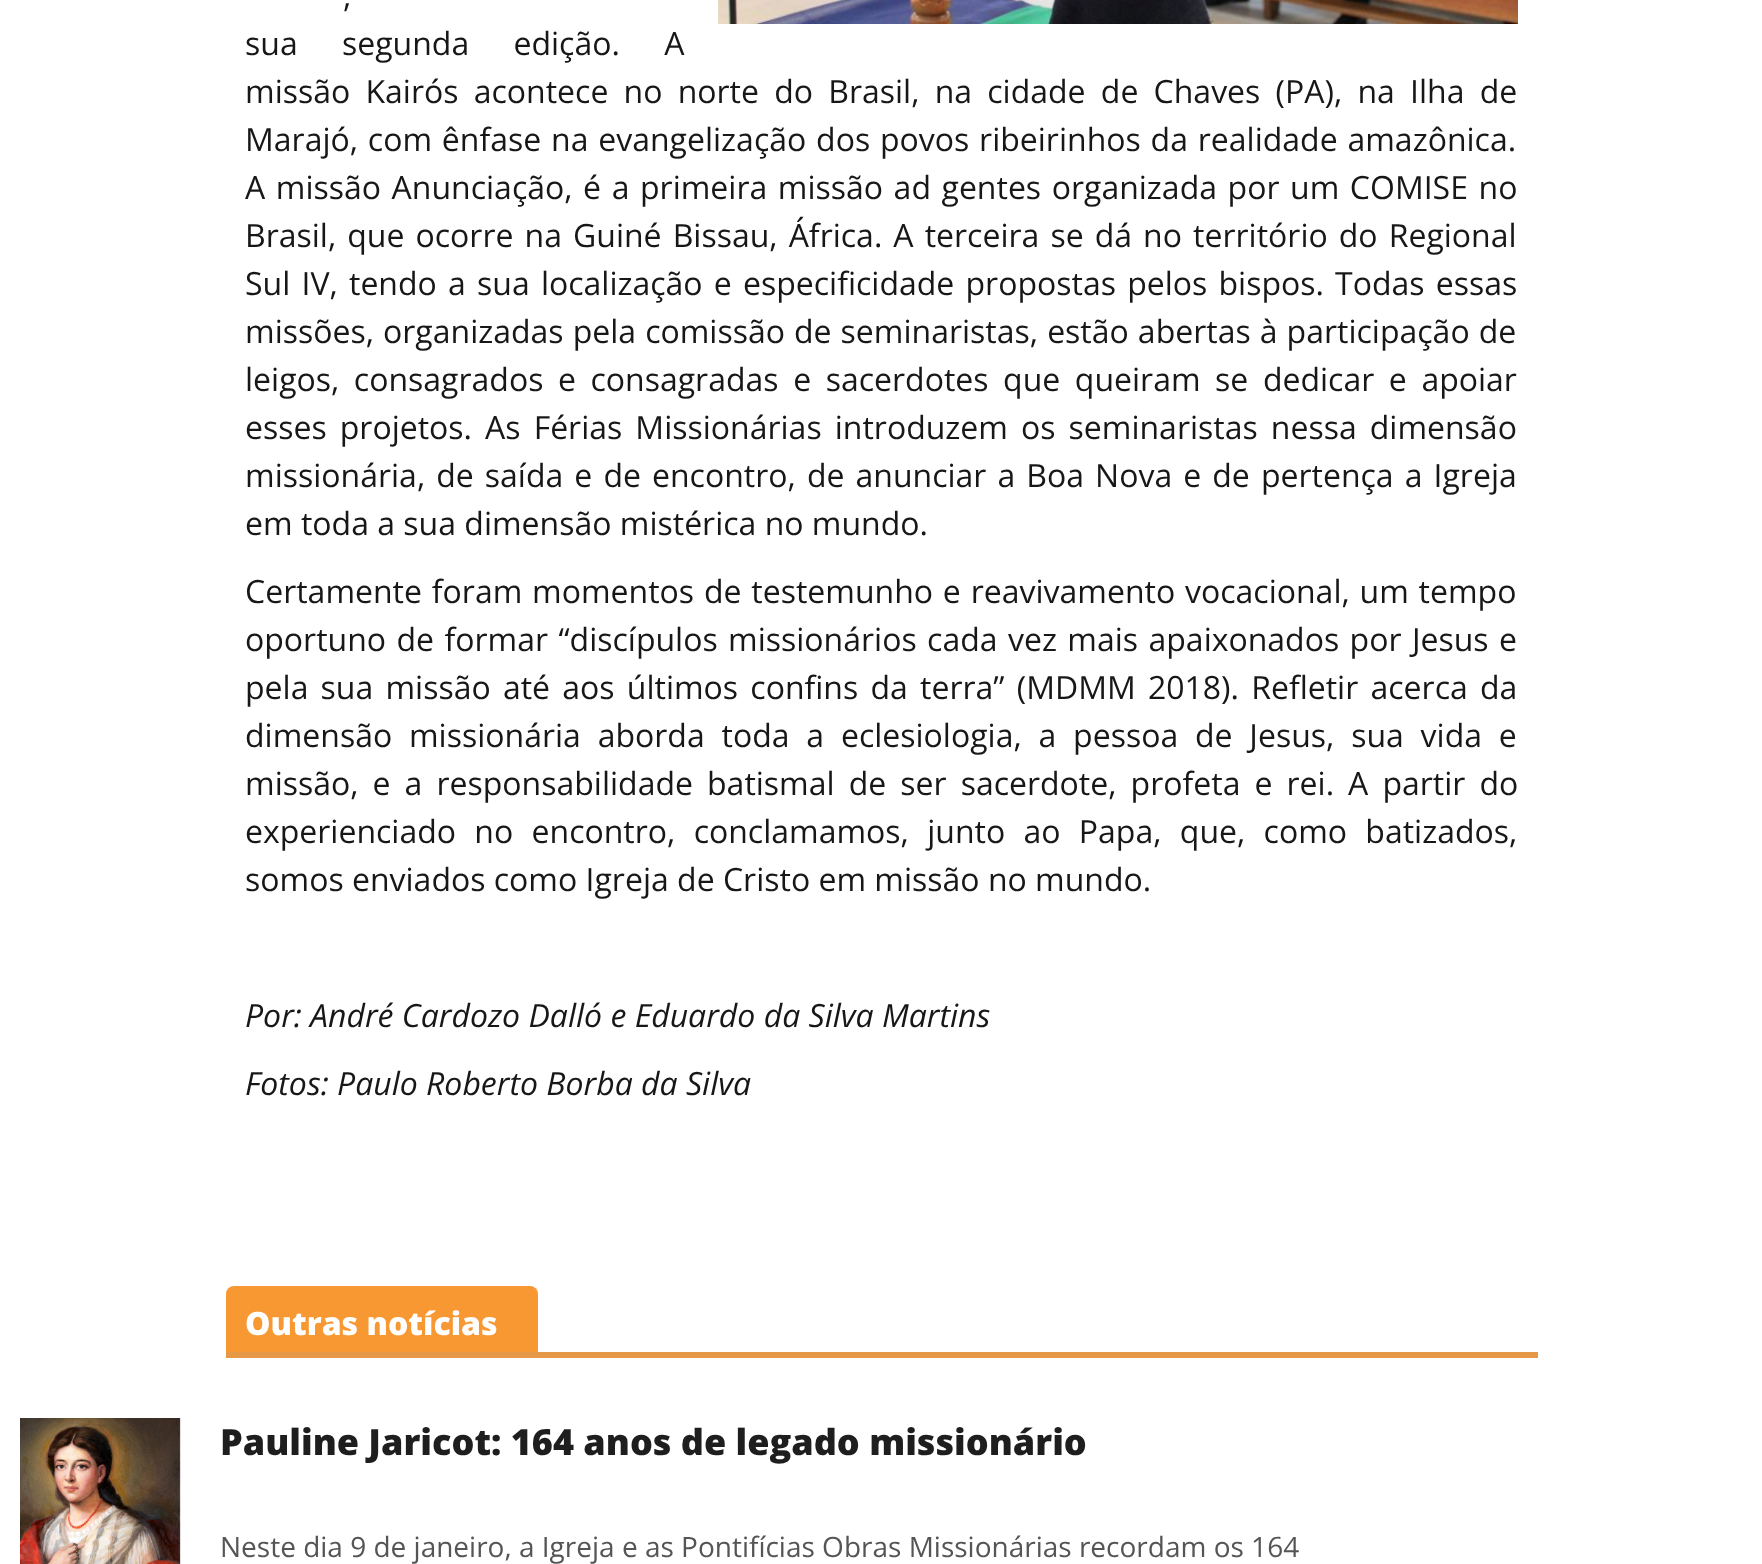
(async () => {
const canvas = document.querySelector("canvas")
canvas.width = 1762
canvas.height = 1564
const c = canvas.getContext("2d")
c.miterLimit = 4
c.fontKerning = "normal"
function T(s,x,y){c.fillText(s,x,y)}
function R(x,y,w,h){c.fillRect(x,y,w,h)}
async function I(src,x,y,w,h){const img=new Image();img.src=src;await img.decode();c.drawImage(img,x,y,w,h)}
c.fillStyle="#fff"
R(0,0,1762,1564)
c.wordSpacing="1px"
c.font="32px Open Sans"
c.fillStyle="#171717"
T(",",343,7)
await I("1.png",718,0,800,24)
c.wordSpacing="36px"
T("sua segunda edição. A",245,55)
c.wordSpacing="6.9px"
T("missão Kairós acontece no norte do Brasil, na cidade de Chaves (PA), na Ilha de",245,103)
c.wordSpacing="1.5px"
T("Marajó, com ênfase na evangelização dos povos ribeirinhos da realidade amazônica.",245,151)
c.wordSpacing="2.25px"
T("A missão Anunciação, é a primeira missão ad gentes organizada por um COMISE no",245,199)
c.wordSpacing="2.75px"
T("Brasil, que ocorre na Guiné Bissau, África. A terceira se dá no território do Regional",245,247)
c.wordSpacing="2.9px"
T("Sul IV, tendo a sua localização e especificidade propostas pelos bispos. Todas essas",245,295)
c.wordSpacing="0.75px"
T("missões, organizadas pela comissão de seminaristas, estão abertas à participação de",245,343)
c.wordSpacing="6.25px"
T("leigos, consagrados e consagradas e sacerdotes que queiram se dedicar e apoiar",245,391)
c.wordSpacing="4.75px"
T("esses projetos. As Férias Missionárias introduzem os seminaristas nessa dimensão",245,439)
c.wordSpacing="2.75px"
T("missionária, de saída e de encontro, de anunciar a Boa Nova e de pertença a Igreja",245,487)
c.wordSpacing="0px"
T("em toda a sua dimensão mistérica no mundo.",245,535)
c.wordSpacing="1.5px"
T("Certamente foram momentos de testemunho e reavivamento vocacional, um tempo",245,603)
c.wordSpacing="2.1px"
T("oportuno de formar “discípulos missionários cada vez mais apaixonados por Jesus e",245,651)
c.wordSpacing="3.9px"
T("pela sua missão até aos últimos confins da terra” (MDMM 2018). Refletir acerca da",245,699)
c.wordSpacing="8.5px"
T("dimensão missionária aborda toda a eclesiologia, a pessoa de Jesus, sua vida e",245,747)
c.wordSpacing="5.75px"
T("missão, e a responsabilidade batismal de ser sacerdote, profeta e rei. A partir do",245,795)
c.wordSpacing="10px"
T("experienciado no encontro, conclamamos, junto ao Papa, que, como batizados,",245,843)
c.wordSpacing="0px"
T("somos enviados como Igreja de Cristo em missão no mundo.",245,891)
c.font="italic 32px Open Sans"
T("Por: André Cardozo Dalló e Eduardo da Silva Martins",245,1027)
T("Fotos: Paulo Roberto Borba da Silva",245,1095)
c.fillStyle="#f89833"
c.beginPath()
c.roundRect(226,1286,312,72,[8,8,0,0])
c.fill()
c.font="800 32px Open Sans"
c.fillStyle="#fff"
T("Outras notícias",245,1335)
c.fillStyle="#e59846"
R(226,1352,1312,6)
await I("2.png",20,1418,161,146)
c.font="800 36px Open Sans"
c.fillStyle="#1e1e1e"
T("Pauline Jaricot: 164 anos de legado missionário",220,1455)
c.font="28px Open Sans"
c.fillStyle="#555"
T("Neste dia 9 de janeiro, a Igreja e as Pontifícias Obras Missionárias recordam os 164",220,1557)
})()
